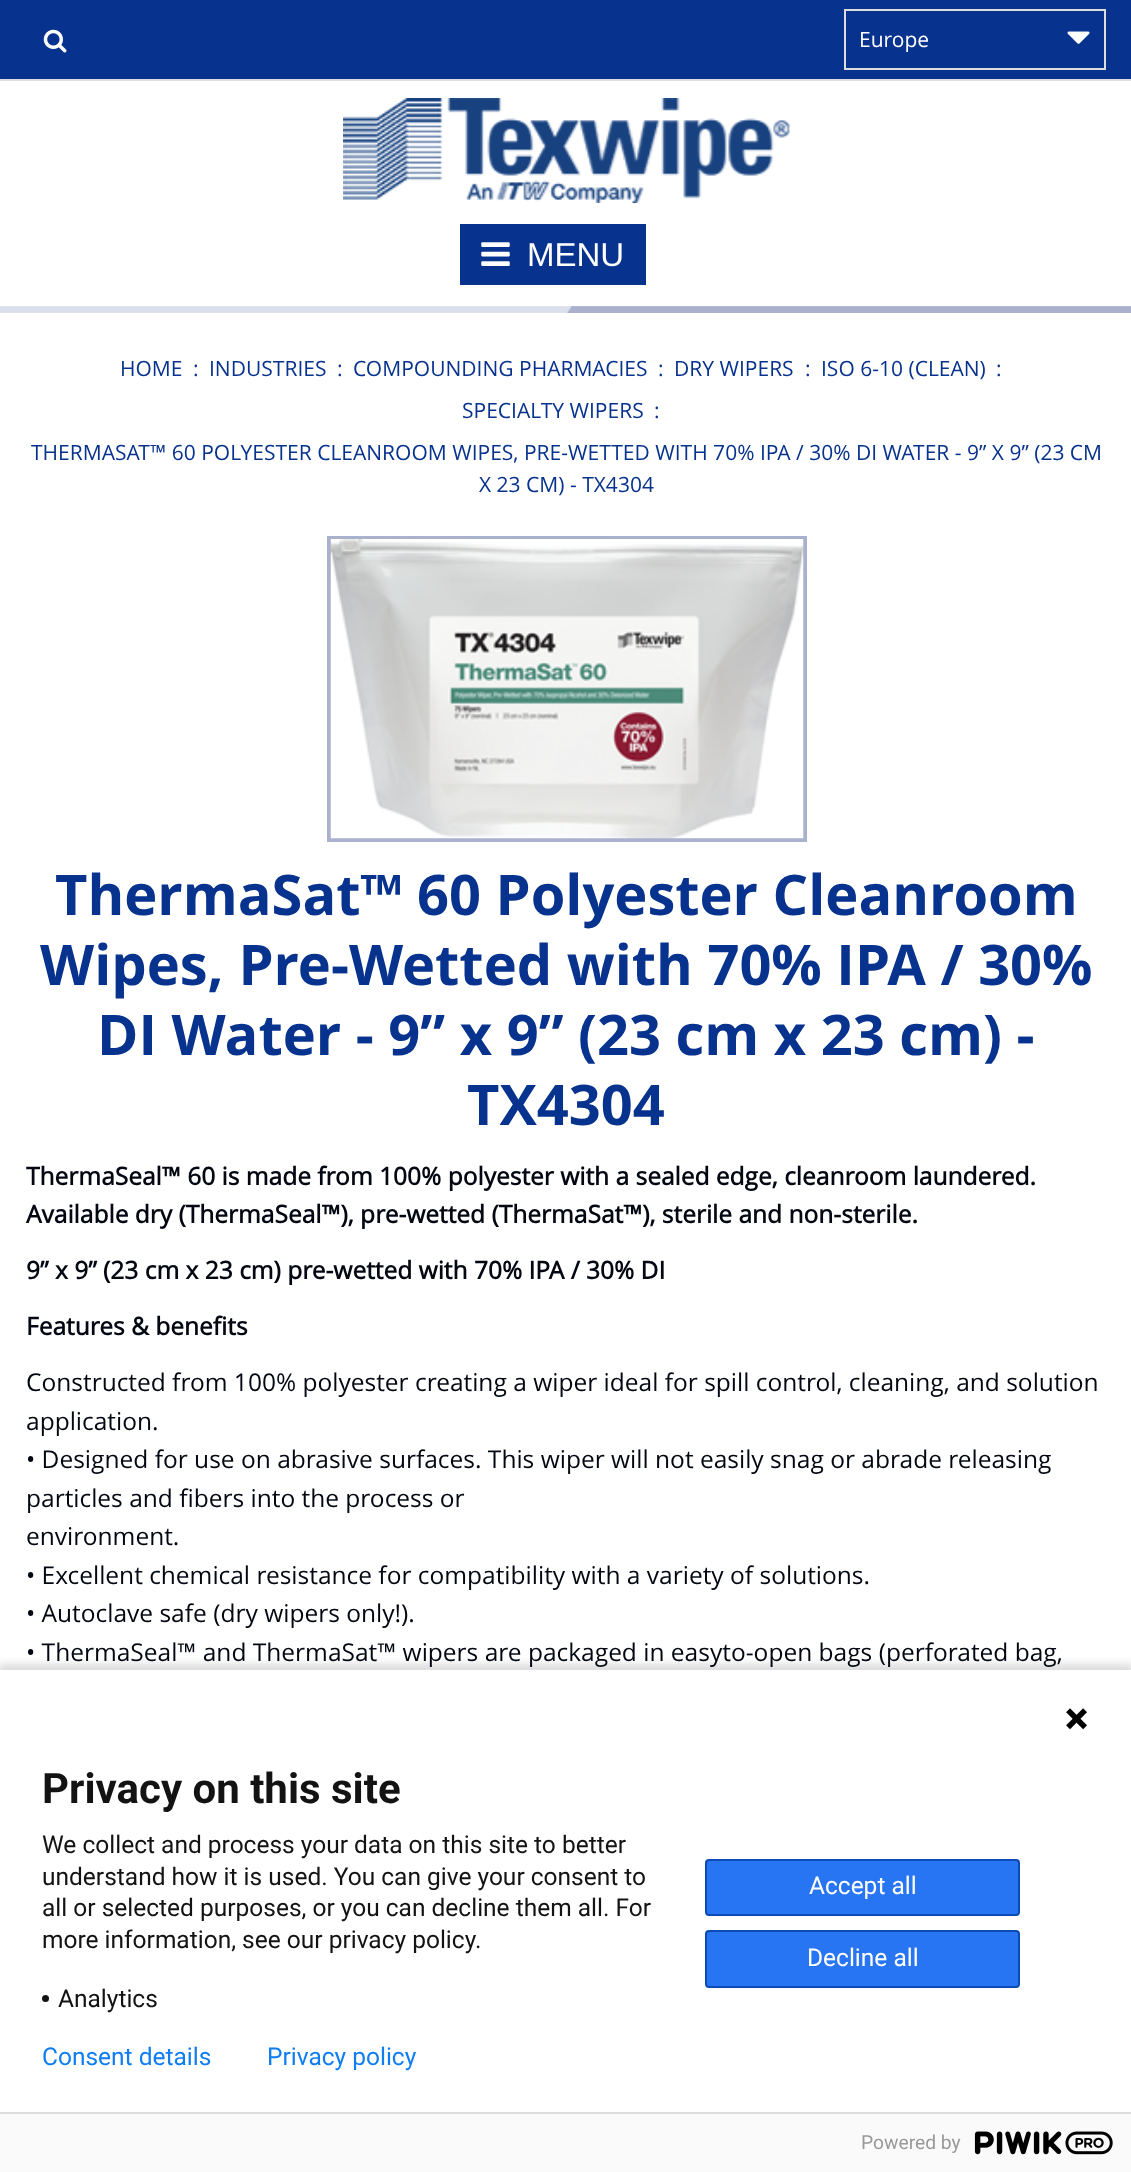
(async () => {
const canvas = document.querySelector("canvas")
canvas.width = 1131
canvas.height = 2172
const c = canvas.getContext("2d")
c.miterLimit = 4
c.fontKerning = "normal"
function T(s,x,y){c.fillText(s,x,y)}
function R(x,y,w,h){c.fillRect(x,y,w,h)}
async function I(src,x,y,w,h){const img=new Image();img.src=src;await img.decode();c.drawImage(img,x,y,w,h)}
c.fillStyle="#fff"
R(0,0,1131,2172)
c.fillStyle="#07328d"
R(0,0,1131,79)
c.fillStyle="#ddd"
R(0,79,1131,2)
await I("1.png",43,29,24,24)
c.strokeStyle="#ddd"
c.lineWidth=2
c.strokeRect(845,10,260,59)
c.font="21px Open Sans"
c.fillStyle="#fff"
T("Europe",859,47)
await I("2.png",1067,31,23,13)
await I("3.png",343,98,447,105)
c.fillStyle="#07328d"
R(460,224,186,61)
await I("4.png",481,242,29,24)
c.font="33px Liberation Sans"
c.fillStyle="#fff"
T("MENU",527,266)
await I("5.png",0,306,1131,7)
c.font="21px Open Sans"
c.fillStyle="#07328d"
T("HOME",120,376)
T(":",193,376)
T("INDUSTRIES",209,376)
T(":",337,376)
T("COMPOUNDING PHARMACIES",353,376)
T(":",658,376)
T("DRY WIPERS",674,376)
T(":",805,376)
T("ISO 6-10 (CLEAN)",821,376)
T(":",996,376)
T("SPECIALTY WIPERS",462,418)
T(":",654,418)
T("THERMASAT™ 60 POLYESTER CLEANROOM WIPES, PRE-WETTED WITH 70% IPA / 30% DI WATER - 9” X 9” (23 CM",31,460)
T("X 23 CM) - TX4304",479,492)
c.strokeStyle="#a9b1cd"
c.lineWidth=4
c.strokeRect(329,538,476,302)
await I("6.png",330,539,474,300)
c.font="bold 56px Open Sans"
T("ThermaSat™ 60 Polyester Cleanroom",55,915)
T("Wipes, Pre-Wetted with 70% IPA / 30%",40,985)
T("DI Water - 9” x 9” (23 cm x 23 cm) -",97,1055)
T("TX4304",467,1125)
c.font="bold 24.5px 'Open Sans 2'"
c.fillStyle="#020711"
T("ThermaSeal™ 60 is made from 100% polyester with a sealed edge, cleanroom laundered.",26,1185)
T("Available dry (ThermaSeal™), pre-wetted (ThermaSat™), sterile and non-sterile.",26,1223)
T("9” x 9” (23 cm x 23 cm) pre-wetted with 70% IPA / 30% DI",26,1279)
T("Features & benefits",26,1335)
c.font="24.5px Open Sans"
T("Constructed from 100% polyester creating a wiper ideal for spill control, cleaning, and solution",26,1391)
T("application.",26,1430)
T("• Designed for use on abrasive surfaces. This wiper will not easily snag or abrade releasing",26,1468)
T("particles and fibers into the process or",26,1507)
T("environment.",26,1545)
T("• Excellent chemical resistance for compatibility with a variety of solutions.",26,1584)
T("• Autoclave safe (dry wipers only!).",26,1622)
T("• ThermaSeal™ and ThermaSat™ wipers are packaged in easyto-open bags (perforated bag,",26,1661)
c.fillStyle="#00000024"
c.filter="blur(4.5px)"
c.beginPath()
c.rect(-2,1664,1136,508)
c.fill()
c.filter="none"
c.fillStyle="#fff"
R(0,1670,1131,442)
await I("7.png",1066,1708,21,22)
c.font="bold 42px Roboto"
c.fillStyle="#131313"
T("Privacy on this site",42,1803)
c.font="24.5px Roboto"
T("We collect and process your data on this site to better",42,1853)
T("understand how it is used. You can give your consent to",42,1885)
T("all or selected purposes, or you can decline them all. For",42,1916)
T("more information, see our privacy policy.",42,1948)
c.beginPath()
c.arc(45.5,1998.5,3.5,0,7)
c.fill()
T("Analytics",58,2007)
c.fillStyle="#2775f2"
c.beginPath()
c.roundRect(706,1860,313,55,3)
c.fill()
c.strokeStyle="#0b4bb3"
c.lineWidth=2
c.stroke()
c.fillStyle="#fff"
T("Accept all",809,1894)
c.fillStyle="#2775f2"
c.beginPath()
c.roundRect(706,1931,313,56,3)
c.fill()
c.stroke()
c.fillStyle="#fff"
T("Decline all",807,1966)
c.fillStyle="#107ef1"
T("Consent details",42,2065)
T("Privacy policy",267,2065)
c.fillStyle="#fafafa"
R(0,2114,1131,58)
c.fillStyle="#ddd"
R(0,2112,1131,2)
c.font="19.25px Roboto"
c.fillStyle="#999"
T("Powered by",861,2149)
await I("8.png",974,2131,139,24)
})()
